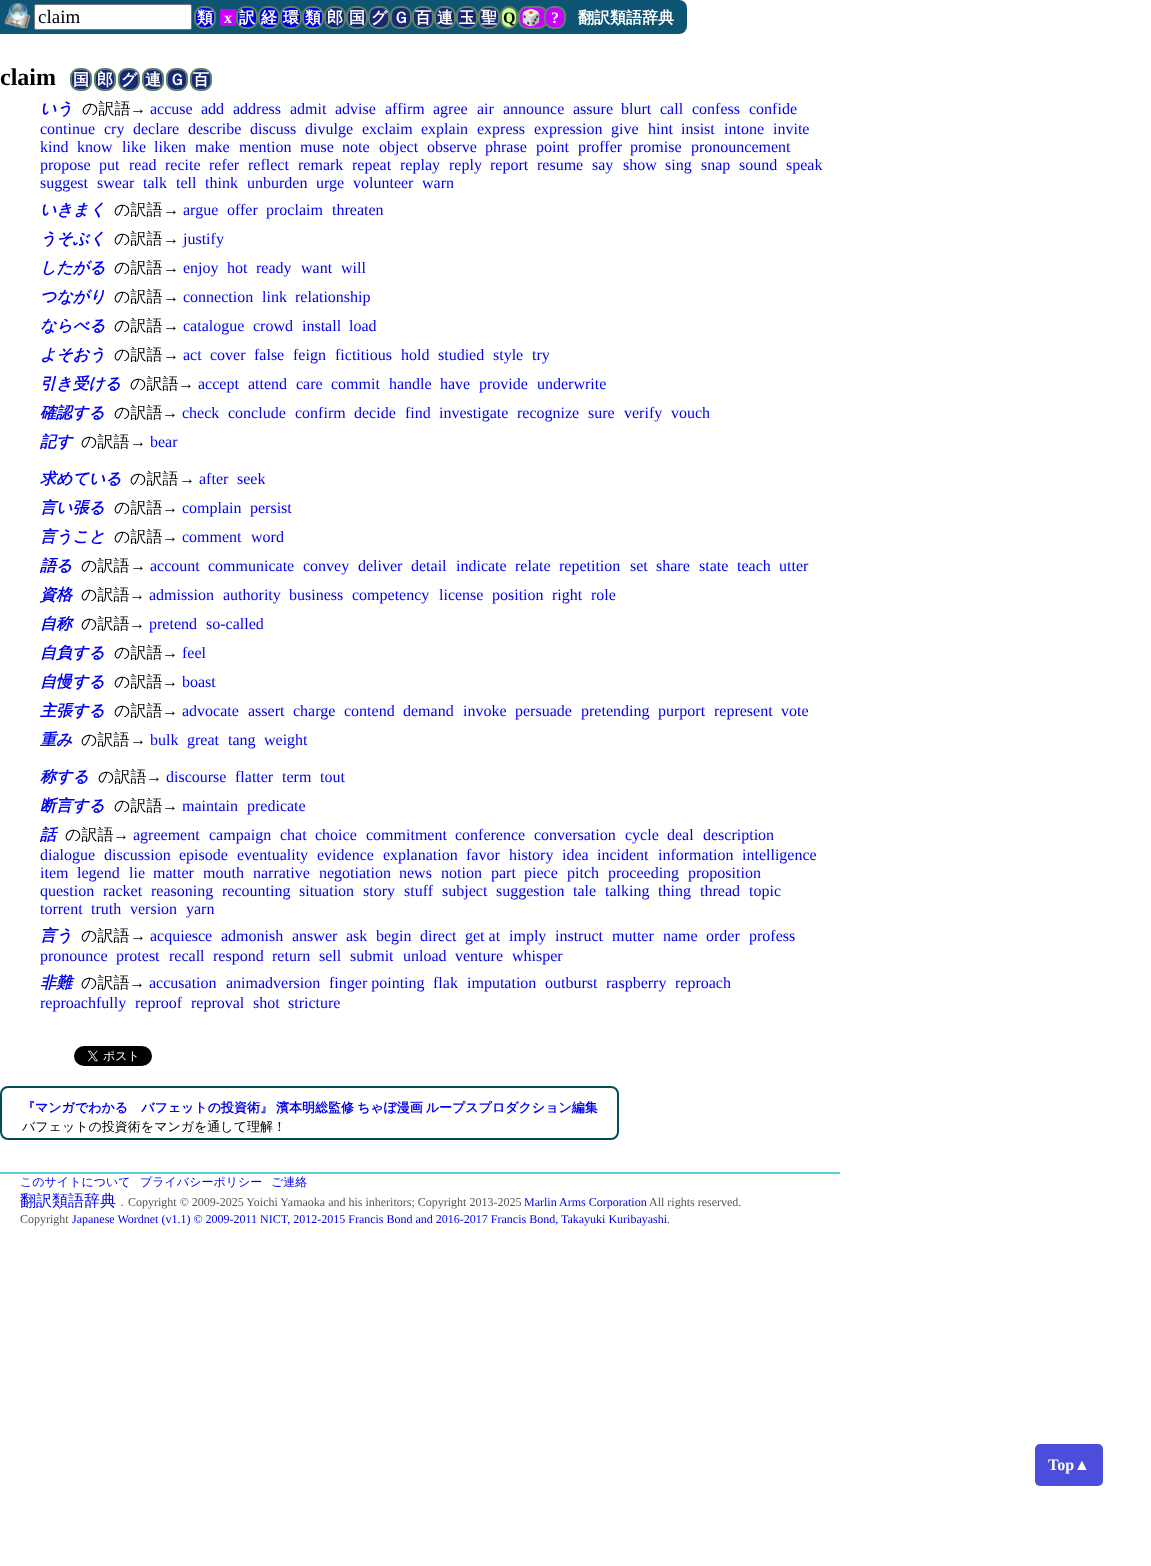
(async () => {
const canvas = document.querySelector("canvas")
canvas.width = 1151
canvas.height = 1566
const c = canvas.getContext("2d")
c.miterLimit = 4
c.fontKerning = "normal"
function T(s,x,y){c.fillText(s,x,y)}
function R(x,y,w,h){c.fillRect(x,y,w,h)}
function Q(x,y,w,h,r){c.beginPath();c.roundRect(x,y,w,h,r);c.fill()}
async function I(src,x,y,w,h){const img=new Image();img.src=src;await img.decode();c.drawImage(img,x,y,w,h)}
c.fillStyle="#fff"
R(0,0,1151,1566)
c.fillStyle="#0e5573"
c.beginPath()
c.roundRect(0,0,687,34,[0,8,8,0])
c.fill()
await I("1.png",4,2,27,27)
c.fillStyle="#fff"
c.beginPath()
c.roundRect(34.5,4.5,157,25,1.5)
c.fill()
c.strokeStyle="#767676"
c.stroke()
c.font="19px Liberation Serif"
c.fillStyle="#000"
T("claim",38,23)
c.fillStyle="#00d"
c.beginPath()
c.roundRect(195,7,20,21,8)
c.fill()
c.strokeStyle="#5e8367"
c.lineWidth=2
c.stroke()
c.font="bold 16px WenQuanYi Zen Hei"
c.fillStyle="#fff"
T("類",197,23)
c.fillStyle="#c0f"
R(220,9,16,17)
c.font="bold 16px Liberation Serif"
c.fillStyle="#fff"
T("x",224,23)
c.fillStyle="#00d"
c.beginPath()
c.roundRect(237,7,20,21,8)
c.fill()
c.stroke()
c.font="bold 16px WenQuanYi Zen Hei"
c.fillStyle="#fff"
T("訳",239,23)
c.fillStyle="#00d"
c.beginPath()
c.roundRect(259,7,20,21,8)
c.fill()
c.stroke()
c.fillStyle="#fff"
T("経",261,23)
c.fillStyle="#00d"
c.beginPath()
c.roundRect(281,7,20,21,8)
c.fill()
c.stroke()
c.fillStyle="#fff"
T("環",283,23)
c.fillStyle="#00d"
c.beginPath()
c.roundRect(303,7,20,21,8)
c.fill()
c.stroke()
c.fillStyle="#fff"
T("類",305,23)
c.fillStyle="#192777"
c.beginPath()
c.roundRect(325,7,20,21,8)
c.fill()
c.stroke()
c.fillStyle="#fff"
T("郎",327,23)
c.fillStyle="#192777"
c.beginPath()
c.roundRect(347,7,20,21,8)
c.fill()
c.stroke()
c.fillStyle="#fff"
T("国",349,23)
c.fillStyle="#192777"
c.beginPath()
c.roundRect(369,7,20,21,8)
c.fill()
c.stroke()
c.fillStyle="#fff"
T("グ",371,23)
c.fillStyle="#192777"
c.beginPath()
c.roundRect(391,7,20,21,8)
c.fill()
c.stroke()
c.fillStyle="#fff"
T("Ｇ",393,23)
c.fillStyle="#192777"
c.beginPath()
c.roundRect(413,7,20,21,8)
c.fill()
c.stroke()
c.fillStyle="#fff"
T("百",415,23)
c.fillStyle="#192777"
c.beginPath()
c.roundRect(435,7,20,21,8)
c.fill()
c.stroke()
c.fillStyle="#fff"
T("連",437,23)
c.fillStyle="#192777"
c.beginPath()
c.roundRect(457,7,20,21,8)
c.fill()
c.stroke()
c.fillStyle="#fff"
T("玉",459,23)
c.fillStyle="#192777"
c.beginPath()
c.roundRect(479,7,20,21,8)
c.fill()
c.stroke()
c.fillStyle="#fff"
T("聖",481,23)
c.fillStyle="#c9ff93"
c.beginPath()
c.roundRect(501,7,16,21,8)
c.fill()
c.stroke()
c.font="bold 16px Liberation Serif"
c.fillStyle="#000"
T("Q",503,23)
c.fillStyle="#c0f"
c.beginPath()
c.roundRect(519,7,28,21,8)
c.fill()
c.stroke()
c.font="bold 16px Noto Color Emoji"
c.fillStyle="#fff"
T("🎲",521,23)
c.fillStyle="#c0f"
c.beginPath()
c.roundRect(545,7,20,21,8)
c.fill()
c.stroke()
c.font="bold 16px Liberation Serif"
c.fillStyle="#fff"
T("?",551,23)
c.font="bold 16px WenQuanYi Zen Hei"
T("翻訳類語辞典",578,23)
c.font="bold 24px Liberation Serif"
c.fillStyle="#000"
T("claim",0,85)
c.fillStyle="#192777"
c.beginPath()
c.roundRect(71,69,20,21,8)
c.fill()
c.stroke()
c.font="bold 16px WenQuanYi Zen Hei"
c.fillStyle="#fff"
T("国",73,85)
c.fillStyle="#192777"
c.beginPath()
c.roundRect(95,69,20,21,8)
c.fill()
c.stroke()
c.fillStyle="#fff"
T("郎",97,85)
c.fillStyle="#192777"
c.beginPath()
c.roundRect(119,69,20,21,8)
c.fill()
c.stroke()
c.fillStyle="#fff"
T("グ",121,85)
c.fillStyle="#192777"
c.beginPath()
c.roundRect(143,69,20,21,8)
c.fill()
c.stroke()
c.fillStyle="#fff"
T("連",145,85)
c.fillStyle="#192777"
c.beginPath()
c.roundRect(167,69,20,21,8)
c.fill()
c.stroke()
c.fillStyle="#fff"
T("Ｇ",169,85)
c.fillStyle="#192777"
c.beginPath()
c.roundRect(191,69,20,21,8)
c.fill()
c.stroke()
c.fillStyle="#fff"
T("百",193,85)
c.font="italic bold 16px WenQuanYi Zen Hei"
c.fillStyle="#00e"
T("いう",40,114)
c.font="500 16px WenQuanYi Zen Hei"
c.fillStyle="#000"
T("の訳語",82,114)
c.font="16px Liberation Serif"
T("→",130,114)
c.fillStyle="#00e"
T("accuse",150,114)
T("add",201,114)
T("address",233,114)
T("admit",290,114)
T("advise",335,114)
T("affirm",385,114)
T("agree",433,114)
T("air",477,114)
T("announce",503,114)
T("assure",573,114)
T("blurt",621,114)
T("call",660,114)
T("confess",692,114)
T("confide",749,114)
T("continue",40,134)
T("cry",104,134)
T("declare",133,134)
T("describe",188,134)
T("discuss",250,134)
T("divulge",305,134)
T("exclaim",362,134)
T("explain",421,134)
T("express",477,134)
T("expression",534,134)
T("give",611,134)
T("hint",648,134)
T("insist",681,134)
T("intone",724,134)
T("invite",773,134)
T("kind",40,152)
T("know",77,152)
T("like",122,152)
T("liken",154,152)
T("make",195,152)
T("mention",239,152)
T("muse",300,152)
T("note",342,152)
T("object",379,152)
T("observe",427,152)
T("phrase",485,152)
T("point",536,152)
T("proffer",578,152)
T("promise",630,152)
T("pronouncement",691,152)
T("propose",40,170)
T("put",99,170)
T("read",129,170)
T("recite",165,170)
T("refer",209,170)
T("reflect",248,170)
T("remark",298,170)
T("repeat",352,170)
T("replay",400,170)
T("reply",449,170)
T("report",490,170)
T("resume",537,170)
T("say",592,170)
T("show",623,170)
T("sing",665,170)
T("snap",701,170)
T("sound",739,170)
T("speak",786,170)
T("suggest",40,188)
T("swear",97,188)
T("talk",143,188)
T("tell",176,188)
T("think",205,188)
T("unburden",247,188)
T("urge",316,188)
T("volunteer",353,188)
T("warn",422,188)
c.font="italic bold 16px WenQuanYi Zen Hei"
T("いきまく",40,215)
c.font="500 16px WenQuanYi Zen Hei"
c.fillStyle="#000"
T("の訳語",114,215)
c.font="16px Liberation Serif"
T("→",163,215)
c.fillStyle="#00e"
T("argue",183,215)
T("offer",227,215)
T("proclaim",266,215)
T("threaten",332,215)
c.font="italic bold 16px WenQuanYi Zen Hei"
T("うそぶく",40,244)
c.font="500 16px WenQuanYi Zen Hei"
c.fillStyle="#000"
T("の訳語",114,244)
c.font="16px Liberation Serif"
T("→",163,244)
c.fillStyle="#00e"
T("justify",183,244)
c.font="italic bold 16px WenQuanYi Zen Hei"
T("したがる",40,273)
c.font="500 16px WenQuanYi Zen Hei"
c.fillStyle="#000"
T("の訳語",114,273)
c.font="16px Liberation Serif"
T("→",163,273)
c.fillStyle="#00e"
T("enjoy",183,273)
T("hot",227,273)
T("ready",256,273)
T("want",301,273)
T("will",341,273)
c.font="italic bold 16px WenQuanYi Zen Hei"
T("つながり",40,302)
c.font="500 16px WenQuanYi Zen Hei"
c.fillStyle="#000"
T("の訳語",114,302)
c.font="16px Liberation Serif"
T("→",163,302)
c.fillStyle="#00e"
T("connection",183,302)
T("link",262,302)
T("relationship",295,302)
c.font="italic bold 16px WenQuanYi Zen Hei"
T("ならべる",40,331)
c.font="500 16px WenQuanYi Zen Hei"
c.fillStyle="#000"
T("の訳語",114,331)
c.font="16px Liberation Serif"
T("→",163,331)
c.fillStyle="#00e"
T("catalogue",183,331)
T("crowd",253,331)
T("install",302,331)
T("load",349,331)
c.font="italic bold 16px WenQuanYi Zen Hei"
T("よそおう",40,360)
c.font="500 16px WenQuanYi Zen Hei"
c.fillStyle="#000"
T("の訳語",114,360)
c.font="16px Liberation Serif"
T("→",163,360)
c.fillStyle="#00e"
T("act",183,360)
T("cover",210,360)
T("false",254,360)
T("feign",293,360)
T("fictitious",335,360)
T("hold",401,360)
T("studied",438,360)
T("style",493,360)
T("try",532,360)
c.font="italic bold 16px WenQuanYi Zen Hei"
T("引き受ける",40,389)
c.font="500 16px WenQuanYi Zen Hei"
c.fillStyle="#000"
T("の訳語",130,389)
c.font="16px Liberation Serif"
T("→",178,389)
c.fillStyle="#00e"
T("accept",198,389)
T("attend",248,389)
T("care",296,389)
T("commit",331,389)
T("handle",389,389)
T("have",440,389)
T("provide",479,389)
T("underwrite",537,389)
c.font="italic bold 16px WenQuanYi Zen Hei"
T("確認する",40,418)
c.font="500 16px WenQuanYi Zen Hei"
c.fillStyle="#000"
T("の訳語",114,418)
c.font="16px Liberation Serif"
T("→",162,418)
c.fillStyle="#00e"
T("check",182,418)
T("conclude",228,418)
T("confirm",295,418)
T("decide",354,418)
T("find",405,418)
T("investigate",439,418)
T("recognize",517,418)
T("sure",588,418)
T("verify",624,418)
T("vouch",671,418)
c.font="italic bold 16px WenQuanYi Zen Hei"
T("記す",40,447)
c.font="500 16px WenQuanYi Zen Hei"
c.fillStyle="#000"
T("の訳語",81,447)
c.font="16px Liberation Serif"
T("→",130,447)
c.fillStyle="#00e"
T("bear",150,447)
c.font="italic bold 16px WenQuanYi Zen Hei"
T("求めている",40,484)
c.font="500 16px WenQuanYi Zen Hei"
c.fillStyle="#000"
T("の訳語",130,484)
c.font="16px Liberation Serif"
T("→",179,484)
c.fillStyle="#00e"
T("after",199,484)
T("seek",237,484)
c.font="italic bold 16px WenQuanYi Zen Hei"
T("言い張る",40,513)
c.font="500 16px WenQuanYi Zen Hei"
c.fillStyle="#000"
T("の訳語",114,513)
c.font="16px Liberation Serif"
T("→",162,513)
c.fillStyle="#00e"
T("complain",182,513)
T("persist",250,513)
c.font="italic bold 16px WenQuanYi Zen Hei"
T("言うこと",40,542)
c.font="500 16px WenQuanYi Zen Hei"
c.fillStyle="#000"
T("の訳語",114,542)
c.font="16px Liberation Serif"
T("→",162,542)
c.fillStyle="#00e"
T("comment",182,542)
T("word",251,542)
c.font="italic bold 16px WenQuanYi Zen Hei"
T("語る",40,571)
c.font="500 16px WenQuanYi Zen Hei"
c.fillStyle="#000"
T("の訳語",81,571)
c.font="16px Liberation Serif"
T("→",130,571)
c.fillStyle="#00e"
T("account",150,571)
T("communicate",208,571)
T("convey",303,571)
T("deliver",358,571)
T("detail",411,571)
T("indicate",456,571)
T("relate",515,571)
T("repetition",559,571)
T("set",630,571)
T("share",656,571)
T("state",699,571)
T("teach",737,571)
T("utter",779,571)
c.font="italic bold 16px WenQuanYi Zen Hei"
T("資格",40,600)
c.font="500 16px WenQuanYi Zen Hei"
c.fillStyle="#000"
T("の訳語",81,600)
c.font="16px Liberation Serif"
T("→",129,600)
c.fillStyle="#00e"
T("admission",149,600)
T("authority",223,600)
T("business",289,600)
T("competency",352,600)
T("license",439,600)
T("position",492,600)
T("right",552,600)
T("role",591,600)
c.font="italic bold 16px WenQuanYi Zen Hei"
T("自称",40,629)
c.font="500 16px WenQuanYi Zen Hei"
c.fillStyle="#000"
T("の訳語",81,629)
c.font="16px Liberation Serif"
T("→",129,629)
c.fillStyle="#00e"
T("pretend",149,629)
T("so-called",206,629)
c.font="italic bold 16px WenQuanYi Zen Hei"
T("自負する",40,658)
c.font="500 16px WenQuanYi Zen Hei"
c.fillStyle="#000"
T("の訳語",114,658)
c.font="16px Liberation Serif"
T("→",162,658)
c.fillStyle="#00e"
T("feel",182,658)
c.font="italic bold 16px WenQuanYi Zen Hei"
T("自慢する",40,687)
c.font="500 16px WenQuanYi Zen Hei"
c.fillStyle="#000"
T("の訳語",114,687)
c.font="16px Liberation Serif"
T("→",162,687)
c.fillStyle="#00e"
T("boast",182,687)
c.font="italic bold 16px WenQuanYi Zen Hei"
T("主張する",40,716)
c.font="500 16px WenQuanYi Zen Hei"
c.fillStyle="#000"
T("の訳語",114,716)
c.font="16px Liberation Serif"
T("→",162,716)
c.fillStyle="#00e"
T("advocate",182,716)
T("assert",248,716)
T("charge",293,716)
T("contend",344,716)
T("demand",403,716)
T("invoke",463,716)
T("persuade",515,716)
T("pretending",581,716)
T("purport",658,716)
T("represent",714,716)
T("vote",781,716)
c.font="italic bold 16px WenQuanYi Zen Hei"
T("重み",40,745)
c.font="500 16px WenQuanYi Zen Hei"
c.fillStyle="#000"
T("の訳語",81,745)
c.font="16px Liberation Serif"
T("→",130,745)
c.fillStyle="#00e"
T("bulk",150,745)
T("great",187,745)
T("tang",228,745)
T("weight",264,745)
c.font="italic bold 16px WenQuanYi Zen Hei"
T("称する",40,782)
c.font="500 16px WenQuanYi Zen Hei"
c.fillStyle="#000"
T("の訳語",98,782)
c.font="16px Liberation Serif"
T("→",146,782)
c.fillStyle="#00e"
T("discourse",166,782)
T("flatter",235,782)
T("term",282,782)
T("tout",320,782)
c.font="italic bold 16px WenQuanYi Zen Hei"
T("断言する",40,811)
c.font="500 16px WenQuanYi Zen Hei"
c.fillStyle="#000"
T("の訳語",114,811)
c.font="16px Liberation Serif"
T("→",162,811)
c.fillStyle="#00e"
T("maintain",182,811)
T("predicate",247,811)
c.font="italic bold 16px WenQuanYi Zen Hei"
T("話",40,840)
c.font="500 16px WenQuanYi Zen Hei"
c.fillStyle="#000"
T("の訳語",65,840)
c.font="16px Liberation Serif"
T("→",113,840)
c.fillStyle="#00e"
T("agreement",133,840)
T("campaign",209,840)
T("chat",280,840)
T("choice",315,840)
T("commitment",366,840)
T("conference",455,840)
T("conversation",534,840)
T("cycle",625,840)
T("deal",667,840)
T("description",703,840)
T("dialogue",40,860)
T("discussion",104,860)
T("episode",179,860)
T("eventuality",237,860)
T("evidence",317,860)
T("explanation",383,860)
T("favor",466,860)
T("history",509,860)
T("idea",562,860)
T("incident",597,860)
T("information",658,860)
T("intelligence",742,860)
T("item",40,878)
T("legend",77,878)
T("lie",129,878)
T("matter",153,878)
T("mouth",203,878)
T("narrative",253,878)
T("negotiation",319,878)
T("news",399,878)
T("notion",441,878)
T("part",491,878)
T("piece",524,878)
T("pitch",567,878)
T("proceeding",608,878)
T("proposition",688,878)
T("question",40,896)
T("racket",103,896)
T("reasoning",151,896)
T("recounting",222,896)
T("situation",299,896)
T("story",363,896)
T("stuff",404,896)
T("subject",442,896)
T("suggestion",496,896)
T("tale",573,896)
T("talking",605,896)
T("thing",658,896)
T("thread",700,896)
T("topic",749,896)
T("torrent",40,914)
T("truth",91,914)
T("version",130,914)
T("yarn",186,914)
c.font="italic bold 16px WenQuanYi Zen Hei"
T("言う",40,941)
c.font="500 16px WenQuanYi Zen Hei"
c.fillStyle="#000"
T("の訳語",81,941)
c.font="16px Liberation Serif"
T("→",130,941)
c.fillStyle="#00e"
T("acquiesce",150,941)
T("admonish",221,941)
T("answer",292,941)
T("ask",346,941)
T("begin",376,941)
T("direct",420,941)
T("get at",465,941)
T("imply",509,941)
T("instruct",555,941)
T("mutter",612,941)
T("name",663,941)
T("order",706,941)
T("profess",749,941)
T("pronounce",40,961)
T("protest",116,961)
T("recall",169,961)
T("respond",213,961)
T("return",272,961)
T("sell",319,961)
T("submit",350,961)
T("unload",403,961)
T("venture",455,961)
T("whisper",512,961)
c.font="italic bold 16px WenQuanYi Zen Hei"
T("非難",40,988)
c.font="500 16px WenQuanYi Zen Hei"
c.fillStyle="#000"
T("の訳語",81,988)
c.font="16px Liberation Serif"
T("→",129,988)
c.fillStyle="#00e"
T("accusation",149,988)
T("animadversion",226,988)
T("finger pointing",329,988)
T("flak",433,988)
T("imputation",467,988)
T("outburst",545,988)
T("raspberry",606,988)
T("reproach",675,988)
T("reproachfully",40,1008)
T("reproof",135,1008)
T("reproval",191,1008)
T("shot",253,1008)
T("stricture",288,1008)
await I("2.png",74,1046,78,20)
c.beginPath()
c.roundRect(1,1087,617,52,7)
c.strokeStyle="#004f58"
c.stroke()
c.font="bold 13px WenQuanYi Zen Hei"
T("『マンガでわかる　バフェットの投資術』",22,1112)
c.wordSpacing="-1px"
T("濱本明総監修 ちゃぼ漫画 ループスプロダクション編集",276,1112)
c.wordSpacing="0px"
c.font="500 13px WenQuanYi Zen Hei"
c.fillStyle="#000"
T("バフェットの投資術をマンガを通して理解！",22,1131)
c.fillStyle="#5bccd0"
R(0,1172,840,2)
c.font="500 12px WenQuanYi Zen Hei"
c.fillStyle="#00e"
T("このサイトについて",20,1186)
T("プライバシーポリシー",140,1186)
T("ご連絡",271,1186)
c.font="500 16px WenQuanYi Zen Hei"
T("翻訳類語辞典",20,1206)
c.font="500 12px WenQuanYi Zen Hei"
c.fillStyle="#555"
T("．",116,1206)
c.font="12px Liberation Serif"
T("Copyright © 2009-2025 Yoichi Yamaoka and his inheritors; Copyright 2013-2025",128,1206)
c.fillStyle="#00e"
T("Marlin Arms Corporation",524,1206)
c.fillStyle="#555"
T("All rights reserved.",649,1206)
T("Copyright",20,1223)
c.fillStyle="#00e"
T("Japanese Wordnet (v1.1) © 2009-2011 NICT, 2012-2015 Francis Bond and 2016-2017 Francis Bond, Takayuki Kuribayashi",72,1223)
c.fillStyle="#555"
T(".",667,1223)
c.fillStyle="#4d4ddb"
Q(1035,1444,68,42,5)
c.font="bold 16px Liberation Serif"
c.fillStyle="#fff"
T("Top▲",1048,1470)
})()
